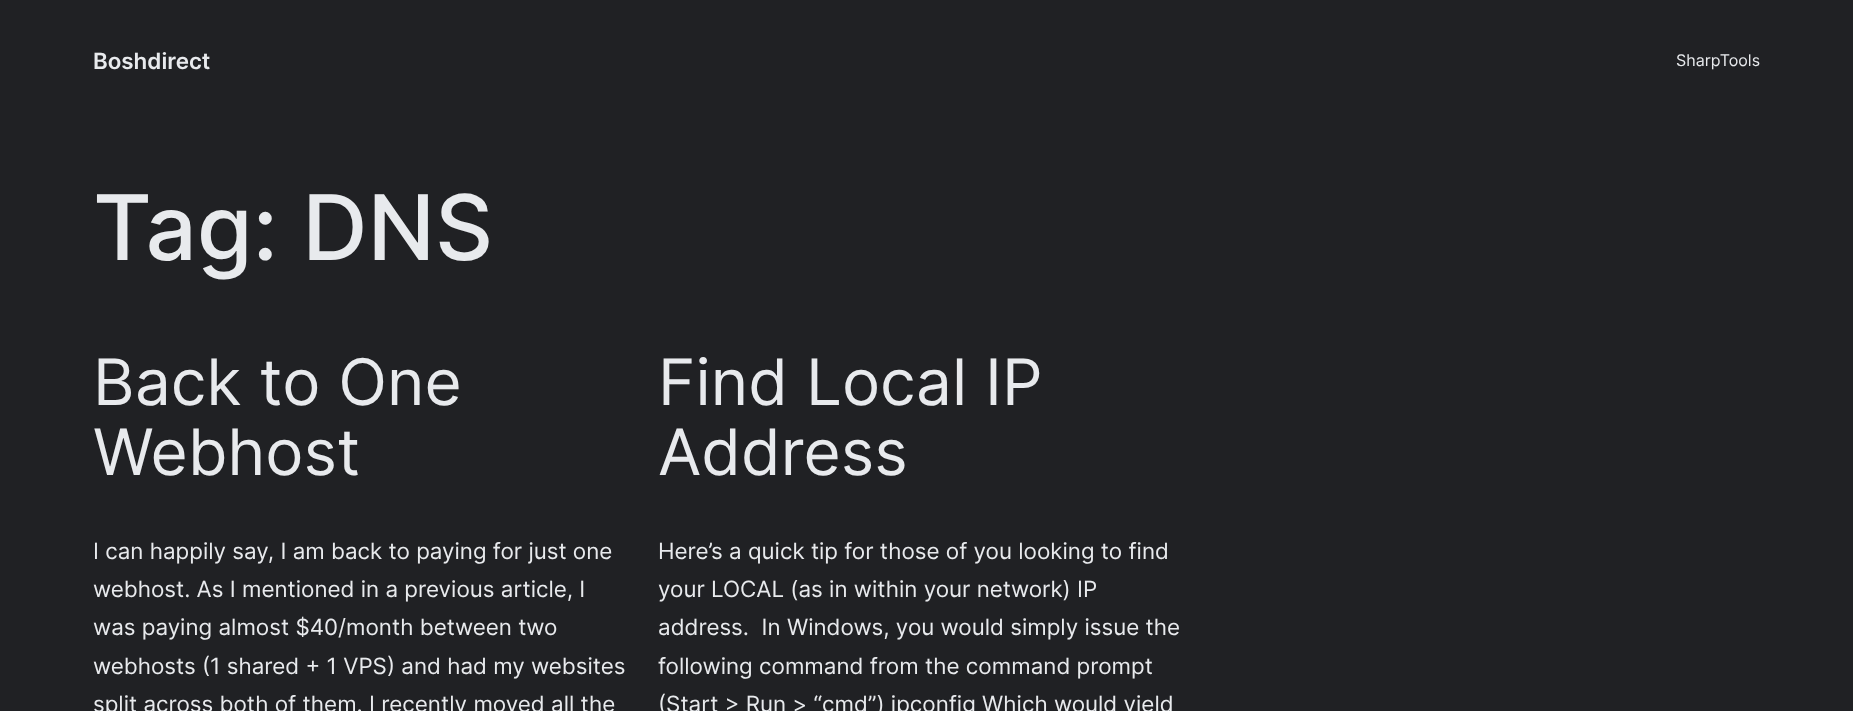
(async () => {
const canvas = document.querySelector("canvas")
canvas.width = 1853
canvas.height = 711
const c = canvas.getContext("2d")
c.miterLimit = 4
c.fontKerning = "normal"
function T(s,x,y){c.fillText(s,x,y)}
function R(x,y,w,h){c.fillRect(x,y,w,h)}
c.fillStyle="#202124"
R(0,0,1853,711)
c.font="600 22.4px Inter"
c.fillStyle="#e8eaed"
T("Boshdirect",93,69)
c.font="16px Inter"
T("SharpTools",1676,66)
c.font="500 90.5px Inter"
T("Tag: DNS",93,260)
c.font="64px Inter"
T("Back to One",93,405)
T("Webhost",93,475)
c.font="22.4px Inter"
T("I can happily say, I am back to paying for just one",93,559)
T("webhost. As I mentioned in a previous article, I",93,597)
T("was paying almost $40/month between two",93,635)
T("webhosts (1 shared + 1 VPS) and had my websites",93,674)
T("split across both of them. I recently moved all the",93,712)
c.font="64px Inter"
T("Find Local IP",658,405)
T("Address",658,475)
c.font="22.4px Inter"
T("Here’s a quick tip for those of you looking to find",658,559)
T("your LOCAL (as in within your network) IP",658,597)
T("address.  In Windows, you would simply issue the",658,635)
T("following command from the command prompt",658,674)
T("(Start > Run > “cmd”) ipconfig Which would yield",658,712)
})()
